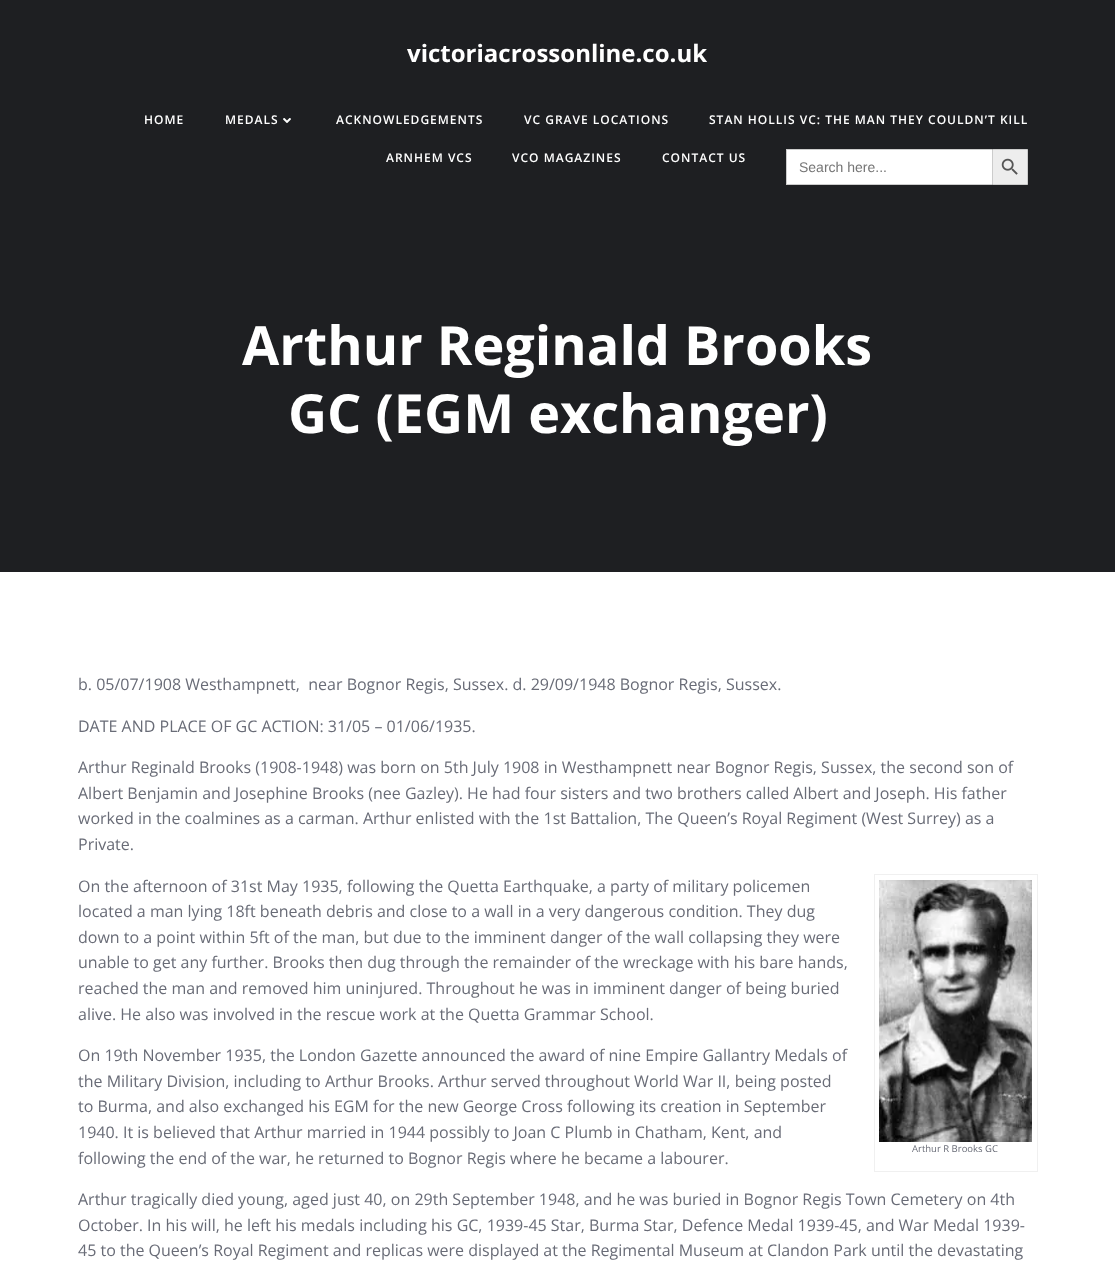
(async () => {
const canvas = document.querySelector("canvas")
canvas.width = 1115
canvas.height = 1263
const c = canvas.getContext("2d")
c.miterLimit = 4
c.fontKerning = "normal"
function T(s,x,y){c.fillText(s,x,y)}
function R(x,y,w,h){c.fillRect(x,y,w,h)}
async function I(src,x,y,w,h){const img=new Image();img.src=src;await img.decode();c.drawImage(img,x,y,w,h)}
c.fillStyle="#fff"
R(0,0,1115,1263)
c.fillStyle="#1e1f22"
R(0,0,1115,572)
c.font="bold 24px Open Sans"
c.fillStyle="#fff"
T("victoriacrossonline.co.uk",407,62)
c.letterSpacing="1px"
c.font="600 12px Open Sans"
T("HOME",144,124)
T("MEDALS",225,124)
await I("1.png",283,118,8,5)
T("ACKNOWLEDGEMENTS",336,124)
T("VC GRAVE LOCATIONS",524,124)
T("STAN HOLLIS VC: THE MAN THEY COULDN’T KILL",709,124)
T("ARNHEM VCS",386,162)
T("VCO MAGAZINES",512,162)
T("CONTACT US",662,162)
R(787,150,205,34)
c.fillStyle="#ccc"
R(786,149,206,1)
R(786,184,206,1)
R(786,149,1,36)
c.letterSpacing="0px"
c.font="14px Liberation Sans"
c.fillStyle="#757575"
T("Search here...",799,172)
c.fillStyle="#ededed"
c.beginPath()
c.rect(992.5,149.5,35,35)
c.fill()
c.strokeStyle="#ccc"
c.stroke()
await I("2.png",1001,158,17,17)
c.font="bold 54px Open Sans"
c.fillStyle="#fff"
T("Arthur Reginald Brooks",242,365)
T("GC (EGM exchanger)",288,433)
c.font="16px Open Sans"
c.fillStyle="#696c77"
T("b. 05/07/1908 Westhampnett,  near Bognor Regis, Sussex. d. 29/09/1948 Bognor Regis, Sussex.",78,690)
T("DATE AND PLACE OF GC ACTION: 31/05 – 01/06/1935.",78,732)
T("Arthur Reginald Brooks (1908-1948) was born on 5th July 1908 in Westhampnett near Bognor Regis, Sussex, the second son of",78,773)
T("Albert Benjamin and Josephine Brooks (nee Gazley). He had four sisters and two brothers called Albert and Joseph. His father",78,799)
T("worked in the coalmines as a carman. Arthur enlisted with the 1st Battalion, The Queen’s Royal Regiment (West Surrey) as a",78,824)
T("Private.",78,850)
T("On the afternoon of 31st May 1935, following the Quetta Earthquake, a party of military policemen",78,892)
T("located a man lying 18ft beneath debris and close to a wall in a very dangerous condition. They dug",78,917)
T("down to a point within 5ft of the man, but due to the imminent danger of the wall collapsing they were",78,943)
T("unable to get any further. Brooks then dug through the remainder of the wreckage with his bare hands,",78,968)
T("reached the man and removed him uninjured. Throughout he was in imminent danger of being buried",78,994)
T("alive. He also was involved in the rescue work at the Quetta Grammar School.",78,1020)
T("On 19th November 1935, the London Gazette announced the award of nine Empire Gallantry Medals of",78,1061)
T("the Military Division, including to Arthur Brooks. Arthur served throughout World War II, being posted",78,1087)
T("to Burma, and also exchanged his EGM for the new George Cross following its creation in September",78,1112)
T("1940. It is believed that Arthur married in 1944 possibly to Joan C Plumb in Chatham, Kent, and",78,1138)
T("following the end of the war, he returned to Bognor Regis where he became a labourer.",78,1164)
c.strokeStyle="#f0f0f0"
c.strokeRect(874.5,874.5,163,297)
await I("3.png",879,880,153,262)
c.font="9.5px Open Sans"
T("Arthur R Brooks GC",912,1152)
c.font="16px Open Sans"
T("Arthur tragically died young, aged just 40, on 29th September 1948, and he was buried in Bognor Regis Town Cemetery on 4th",78,1205)
T("October. In his will, he left his medals including his GC, 1939-45 Star, Burma Star, Defence Medal 1939-45, and War Medal 1939-",78,1231)
T("45 to the Queen’s Royal Regiment and replicas were displayed at the Regimental Museum at Clandon Park until the devastating",78,1256)
})()
